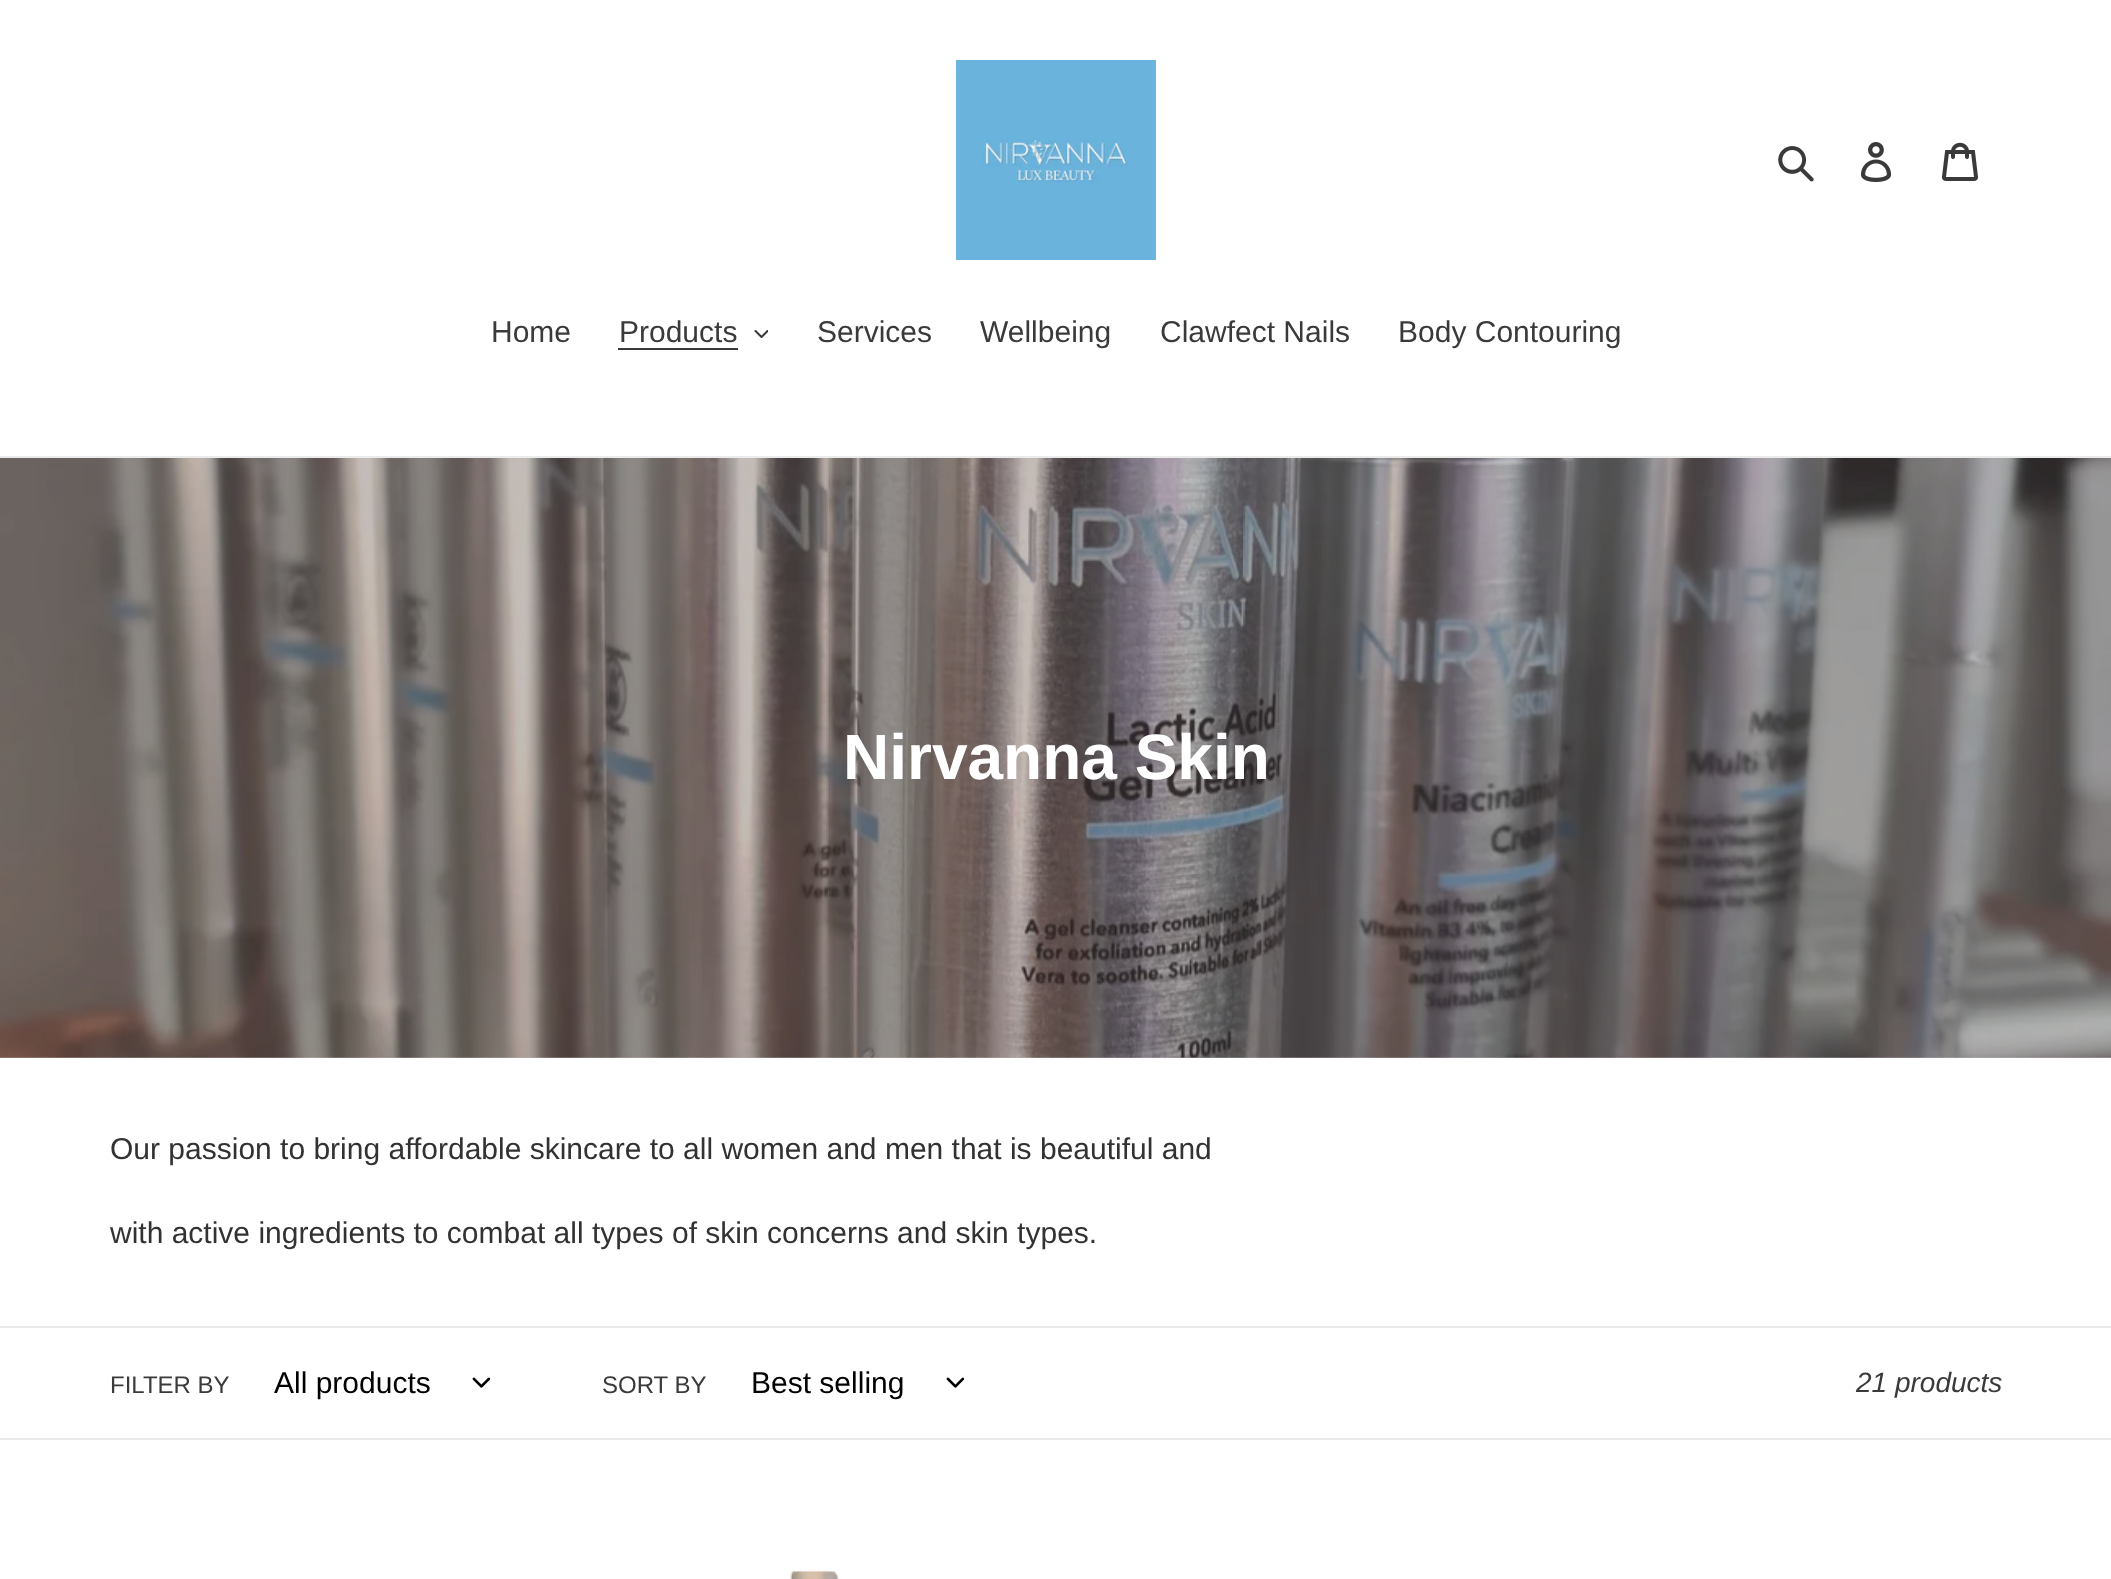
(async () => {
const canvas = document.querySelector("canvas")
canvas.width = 2111
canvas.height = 1579
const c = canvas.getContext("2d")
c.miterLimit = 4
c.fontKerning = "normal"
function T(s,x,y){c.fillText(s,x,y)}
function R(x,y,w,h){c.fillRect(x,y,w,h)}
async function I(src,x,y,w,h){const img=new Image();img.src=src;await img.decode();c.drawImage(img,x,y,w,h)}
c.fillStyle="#fff"
R(0,0,2111,1579)
c.fillStyle="#c3bcbc"
R(0,1057,2111,1)
await I("1.png",956,60,200,200)
await I("2.png",1778,146,36,36)
await I("3.png",1861,142,31,40)
await I("4.png",1942,142,36,39)
c.fillStyle="#ebebeb"
R(0,456,2111,2)
c.font="30px Liberation Sans"
c.fillStyle="#3a3a3a"
T("Home",491,342)
T("Products",619,342)
R(618,348,120,2)
await I("5.png",754,330,14,8)
T("Services",817,342)
T("Wellbeing",980,342)
T("Clawfect Nails",1160,342)
T("Body Contouring",1398,342)
await I("6.png",0,458,2111,600)
c.font="bold 64px Liberation Sans"
c.fillStyle="#fff"
T("Nirvanna Skin",843,779)
c.font="30px Liberation Sans"
c.fillStyle="#333232"
T("Our passion to bring affordable skincare to all women and men that is beautiful and",110,1159)
T("with active ingredients to combat all types of skin concerns and skin types.",110,1243)
c.fillStyle="#ebebeb"
R(0,1326,2111,2)
R(0,1438,2111,2)
c.font="24px Liberation Sans"
c.fillStyle="#3a3a3a"
T("FILTER BY",110,1393)
c.font="30px Liberation Sans"
c.fillStyle="#000"
T("All products",274,1393)
await I("7.png",472,1377,18,11)
c.font="24px Liberation Sans"
c.fillStyle="#3a3a3a"
T("SORT BY",602,1393)
c.font="30px Liberation Sans"
c.fillStyle="#000"
T("Best selling",751,1393)
await I("7.png",946,1377,18,11)
c.font="italic 28px Liberation Sans"
c.fillStyle="#3a3a3a"
T("21 products",1856,1392)
await I("8.png",790,1569,49,10)
})()
